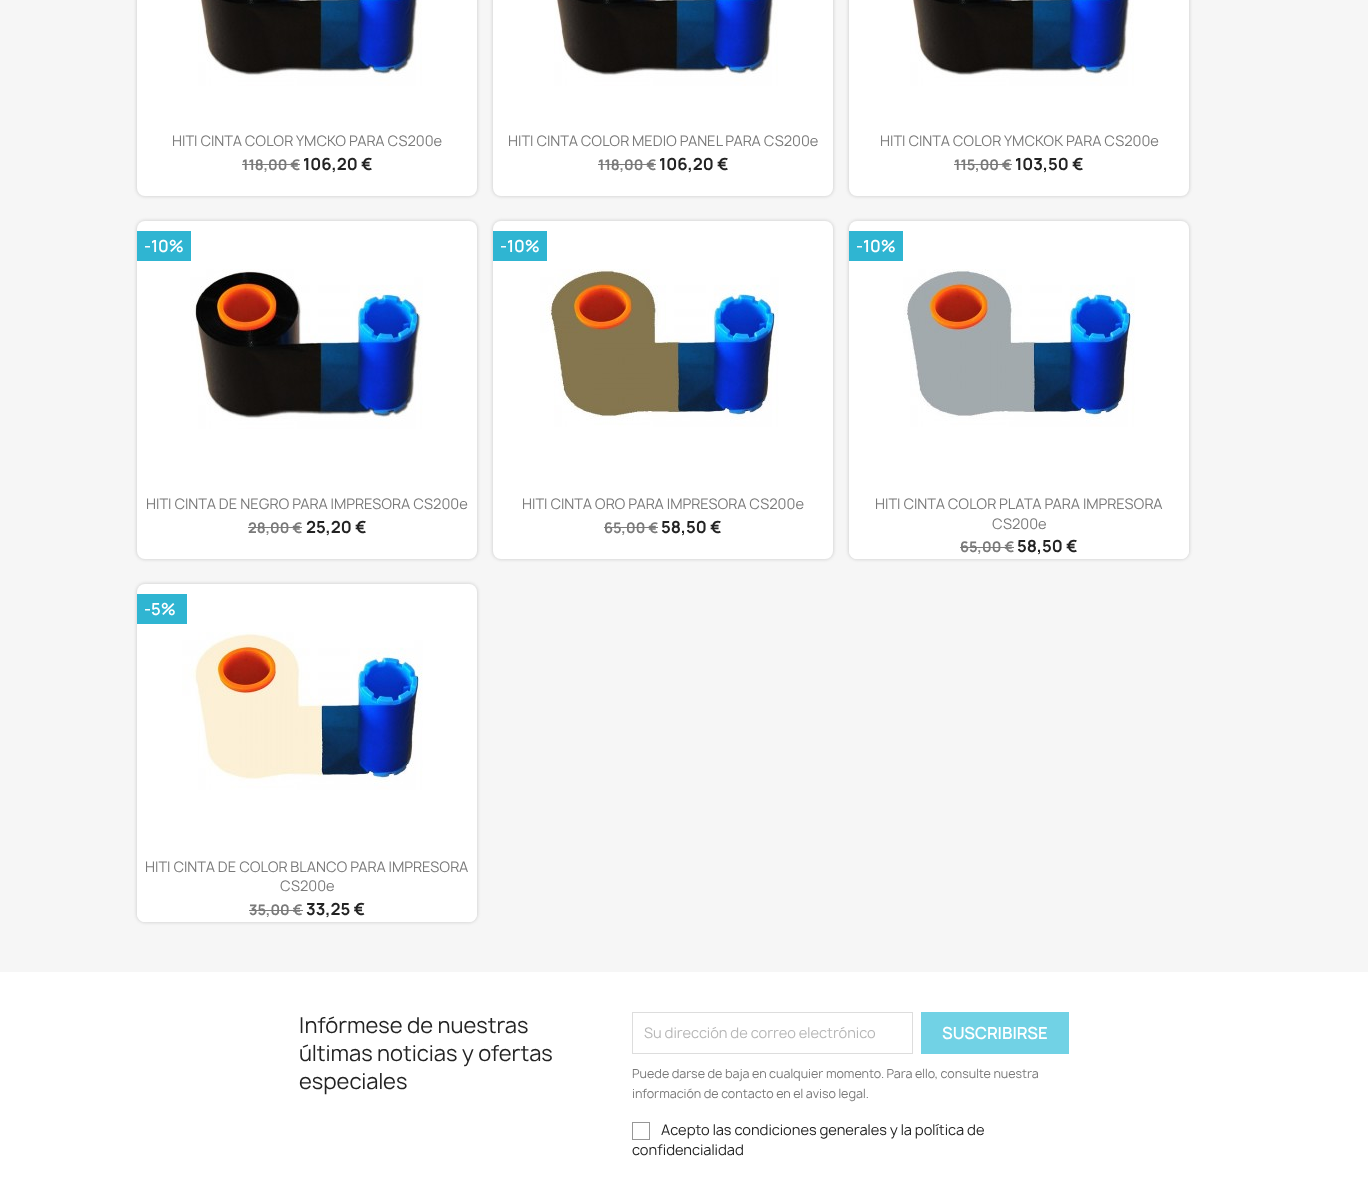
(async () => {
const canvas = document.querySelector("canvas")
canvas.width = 1368
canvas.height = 1183
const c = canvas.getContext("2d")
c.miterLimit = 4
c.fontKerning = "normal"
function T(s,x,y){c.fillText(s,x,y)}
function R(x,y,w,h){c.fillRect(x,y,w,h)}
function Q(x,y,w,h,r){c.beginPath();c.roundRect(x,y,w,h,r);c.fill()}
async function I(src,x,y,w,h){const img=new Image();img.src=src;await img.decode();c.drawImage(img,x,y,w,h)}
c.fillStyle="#fff"
R(0,0,1368,1183)
c.fillStyle="#f6f6f6"
R(0,0,1368,972)
c.fillStyle="#d8d8d8"
c.filter="blur(1.5px)"
c.beginPath()
c.roundRect(136,-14,342,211,9)
c.fill()
c.filter="none"
c.fillStyle="#fff"
Q(137,-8,340,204,8)
await I("1.png",198,0,224,86)
c.font="14px Manrope"
c.fillStyle="#7a7a7a"
T("HITI CINTA COLOR YMCKO PARA CS200e",172,146)
c.font="bold 14px Manrope"
T("118,00 €",242,170)
R(242,164,58,1)
c.font="bold 16px Manrope"
c.fillStyle="#232323"
T("106,20 €",303,170)
c.fillStyle="#d8d8d8"
c.filter="blur(1.5px)"
c.beginPath()
c.roundRect(492,-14,342,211,9)
c.fill()
c.filter="none"
c.fillStyle="#fff"
Q(493,-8,340,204,8)
await I("1.png",554,0,224,86)
c.font="14px Manrope"
c.fillStyle="#7a7a7a"
T("HITI CINTA COLOR MEDIO PANEL PARA CS200e",508,146)
c.font="bold 14px Manrope"
T("118,00 €",598,170)
R(598,164,58,1)
c.font="bold 16px Manrope"
c.fillStyle="#232323"
T("106,20 €",659,170)
c.fillStyle="#d8d8d8"
c.filter="blur(1.5px)"
c.beginPath()
c.roundRect(848,-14,342,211,9)
c.fill()
c.filter="none"
c.fillStyle="#fff"
Q(849,-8,340,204,8)
await I("1.png",910,0,224,86)
c.font="14px Manrope"
c.fillStyle="#7a7a7a"
T("HITI CINTA COLOR YMCKOK PARA CS200e",880,146)
c.font="bold 14px Manrope"
T("115,00 €",954,170)
R(954,164,58,1)
c.font="bold 16px Manrope"
c.fillStyle="#232323"
T("103,50 €",1015,170)
c.fillStyle="#d8d8d8"
c.filter="blur(1.5px)"
c.beginPath()
c.roundRect(136,220,342,340,9)
c.fill()
c.filter="none"
c.fillStyle="#fff"
Q(137,221,340,338,8)
c.fillStyle="#2fb5d2"
R(137,231,54,30)
c.font="600 16px Manrope"
c.fillStyle="#fff"
T("-10%",144,252)
await I("2.png",190,269,233,160)
c.font="14px Manrope"
c.fillStyle="#7a7a7a"
T("HITI CINTA DE NEGRO PARA IMPRESORA CS200e",146,509)
c.font="bold 14px Manrope"
T("28,00 €",248,533)
R(248,527,54,1)
c.font="bold 16px Manrope"
c.fillStyle="#232323"
T("25,20 €",306,533)
c.fillStyle="#d8d8d8"
c.filter="blur(1.5px)"
c.beginPath()
c.roundRect(492,220,342,340,9)
c.fill()
c.filter="none"
c.fillStyle="#fff"
Q(493,221,340,338,8)
c.fillStyle="#2fb5d2"
R(493,231,54,30)
c.font="600 16px Manrope"
c.fillStyle="#fff"
T("-10%",500,252)
await I("3.png",540,269,239,158)
c.font="14px Manrope"
c.fillStyle="#7a7a7a"
T("HITI CINTA ORO PARA IMPRESORA CS200e",522,509)
c.font="bold 14px Manrope"
T("65,00 €",604,533)
R(604,527,54,1)
c.font="bold 16px Manrope"
c.fillStyle="#232323"
T("58,50 €",661,533)
c.fillStyle="#d8d8d8"
c.filter="blur(1.5px)"
c.beginPath()
c.roundRect(848,220,342,340,9)
c.fill()
c.filter="none"
c.fillStyle="#fff"
Q(849,221,340,338,8)
c.fillStyle="#2fb5d2"
R(849,231,54,30)
c.font="600 16px Manrope"
c.fillStyle="#fff"
T("-10%",856,252)
await I("4.png",903,269,232,158)
c.beginPath()
c.roundRect(849,485,340,74,[0,0,8,8])
c.fill()
c.font="14px Manrope"
c.fillStyle="#7a7a7a"
T("HITI CINTA COLOR PLATA PARA IMPRESORA",875,509)
T("CS200e",992,529)
c.font="bold 14px Manrope"
T("65,00 €",960,552)
R(960,547,54,1)
c.font="bold 16px Manrope"
c.fillStyle="#232323"
T("58,50 €",1017,552)
c.fillStyle="#d8d8d8"
c.filter="blur(1.5px)"
c.beginPath()
c.roundRect(136,583,342,340,9)
c.fill()
c.filter="none"
c.fillStyle="#fff"
Q(137,584,340,338,8)
c.fillStyle="#2fb5d2"
R(137,594,50,30)
c.font="600 16px Manrope"
c.fillStyle="#fff"
T("-5%",144,615)
await I("5.png",182,632,241,158)
c.beginPath()
c.roundRect(137,848,340,74,[0,0,8,8])
c.fill()
c.font="14px Manrope"
c.fillStyle="#7a7a7a"
T("HITI CINTA DE COLOR BLANCO PARA IMPRESORA",145,872)
T("CS200e",280,891)
c.font="bold 14px Manrope"
T("35,00 €",249,915)
R(249,910,54,1)
c.font="bold 16px Manrope"
c.fillStyle="#232323"
T("33,25 €",306,915)
c.font="21px Manrope"
T("Infórmese de nuestras",299,1033)
T("últimas noticias y ofertas",299,1061)
T("especiales",299,1089)
c.strokeStyle="#ddd"
c.strokeRect(632.5,1012.5,280,41)
c.font="14px Manrope"
c.fillStyle="#b7b7b7"
T("Su dirección de correo electrónico",644,1038)
c.fillStyle="#71d2e5"
R(921,1012,148,42)
c.font="600 16px Manrope"
c.fillStyle="#fff"
T("SUSCRIBIRSE",942,1039)
c.font="12px Manrope"
c.fillStyle="#7a7a7a"
T("Puede darse de baja en cualquier momento. Para ello, consulte nuestra",632,1078)
T("información de contacto en el aviso legal.",632,1098)
c.strokeStyle="#979797"
c.strokeRect(632.5,1122.5,17,17)
c.font="14px Manrope"
c.fillStyle="#232323"
T("Acepto las condiciones generales y la política de",661,1135)
T("confidencialidad",632,1155)
})()
